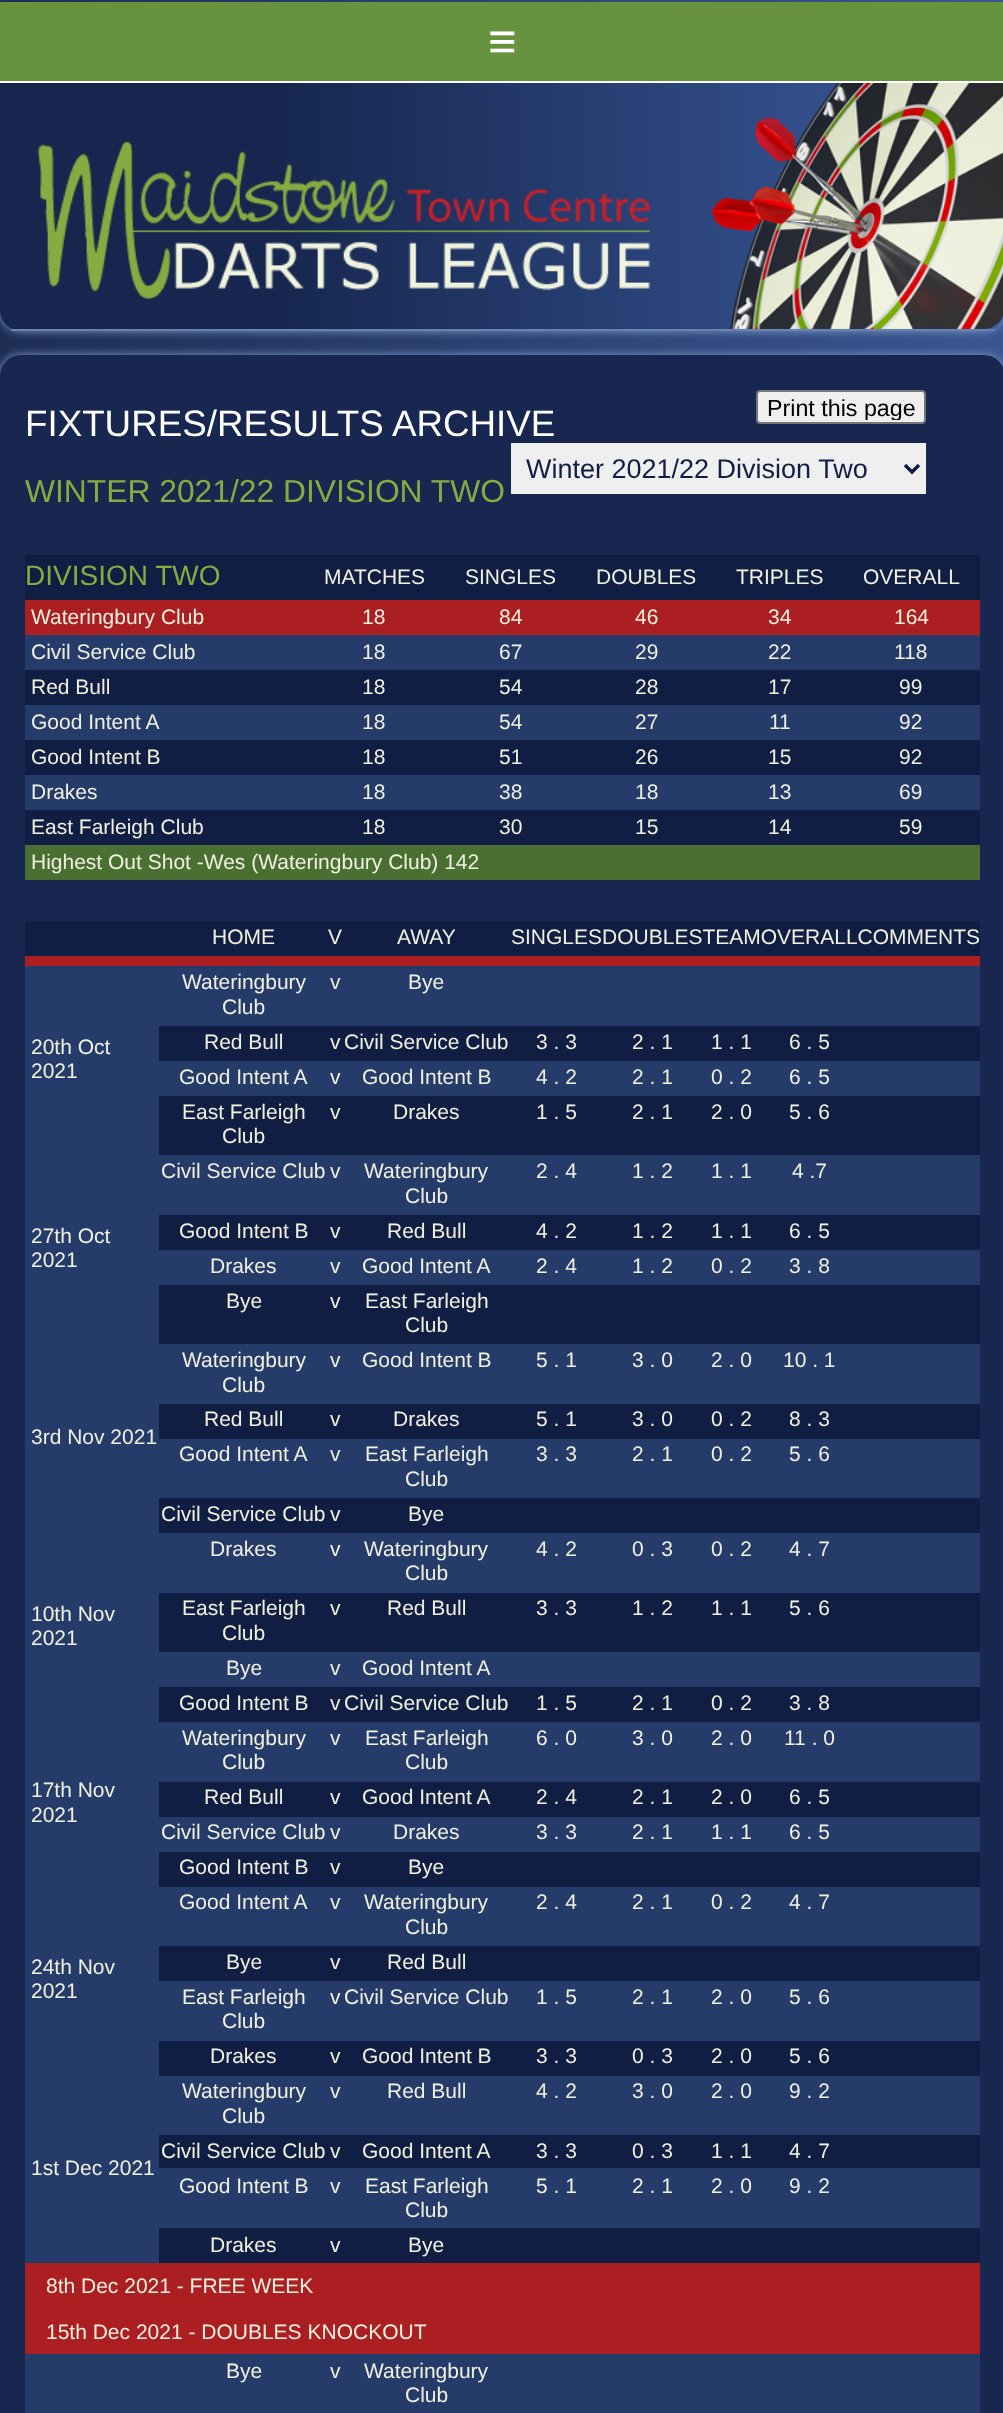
(async () => {
const canvas = document.querySelector("canvas")
canvas.width = 1003
canvas.height = 2413
const c = canvas.getContext("2d")
c.miterLimit = 4
c.fontKerning = "normal"
function T(s,x,y){c.fillText(s,x,y)}
function R(x,y,w,h){c.fillRect(x,y,w,h)}
function Q(x,y,w,h,r){c.beginPath();c.roundRect(x,y,w,h,r);c.fill()}
async function I(src,x,y,w,h){const img=new Image();img.src=src;await img.decode();c.drawImage(img,x,y,w,h)}
let gradient, path
c.fillStyle="#fff"
R(0,0,1003,2413)
gradient = c.createLinearGradient(0,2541,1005,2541)
gradient.addColorStop(0,"#1e2e54")
gradient.addColorStop(1,"#395691")
c.fillStyle = gradient
R(0,0,1003,376)
c.fillStyle="#7c99c5"
c.filter="blur(5px)"
c.beginPath()
c.roundRect(0,68,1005,263,21)
c.fill()
c.filter="none"
gradient = c.createLinearGradient(0,199,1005,199)
gradient.addColorStop(.27,"#16264e")
gradient.addColorStop(1,"#3d5d9f")
c.fillStyle = gradient
path = new Path2D("M0 68h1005v242c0 11.5-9.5 21-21 21h-963c-11.5 0-21-9.5-21-21z")
c.fill(path)
c.fillStyle="#68933e"
R(0,2,1003,79)
c.fillStyle="#fff"
R(0,81,1003,2)
c.font="49px Liberation Sans"
T("≡",488,58)
c.fillStyle="#6784b0"
R(11,329,983,2)
await I("1.png",710,83,293,246)
await I("2.png",37,141,614,158)
c.fillStyle="#7c99c5"
c.filter="blur(5px)"
c.beginPath()
c.roundRect(0,355,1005,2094,21)
c.fill()
c.filter="none"
c.fillStyle="#17274f"
Q(0,355,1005,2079,21)
c.fillStyle="#efefef"
c.beginPath()
c.roundRect(757,391,168,32,3)
c.fill()
c.strokeStyle="#767676"
c.lineWidth=2
c.stroke()
c.save()
c.beginPath()
c.rect(760,394,162,26)
c.clip()
c.font="23.25px Liberation Sans"
c.fillStyle="#000"
T("Print this page",767,416)
c.restore()
R(511,443,415,51)
path = new Path2D("M905 465l7 7l7-7")
c.strokeStyle="#111e43"
c.lineWidth=3.5
c.stroke(path)
c.font="27px Liberation Sans"
c.fillStyle="#111e43"
T("Winter 2021/22 Division Two",526,478)
c.font="31.8px Liberation Sans"
c.fillStyle="#85ac41"
T("WINTER 2021/22 DIVISION TWO",25,502)
c.fillStyle="#111e43"
R(25,555,955,290)
c.font="28px Liberation Sans"
c.fillStyle="#85ac41"
T("DIVISION TWO",25,585)
c.font="21px Liberation Sans"
c.fillStyle="#eff1de"
T("MATCHES",324,584)
T("SINGLES",465,584)
T("DOUBLES",596,584)
T("TRIPLES",736,584)
T("OVERALL",863,584)
c.fillStyle="#ab1f22"
R(25,600,955,35)
c.fillStyle="#eff1de"
T("Wateringbury Club",31,624)
T("18",362,624)
T("84",499,624)
T("46",635,624)
T("34",768,624)
T("164",894,624)
c.fillStyle="#253b6a"
R(25,635,955,35)
c.fillStyle="#eff1de"
T("Civil Service Club",31,659)
T("18",362,659)
T("67",499,659)
T("29",635,659)
T("22",768,659)
T("118",894,659)
T("Red Bull",31,694)
T("18",362,694)
T("54",499,694)
T("28",635,694)
T("17",768,694)
T("99",899,694)
c.fillStyle="#253b6a"
R(25,705,955,35)
c.fillStyle="#eff1de"
T("Good Intent A",31,729)
T("18",362,729)
T("54",499,729)
T("27",635,729)
T("11",769,729)
T("92",899,729)
T("Good Intent B",31,764)
T("18",362,764)
T("51",499,764)
T("26",635,764)
T("15",768,764)
T("92",899,764)
c.fillStyle="#253b6a"
R(25,775,955,35)
c.fillStyle="#eff1de"
T("Drakes",31,799)
T("18",362,799)
T("38",499,799)
T("18",635,799)
T("13",768,799)
T("69",899,799)
T("East Farleigh Club",31,834)
T("18",362,834)
T("30",499,834)
T("15",635,834)
T("14",768,834)
T("59",899,834)
c.fillStyle="#496f32"
R(25,845,955,35)
c.fillStyle="#eff1de"
T("Highest Out Shot -Wes (Wateringbury Club) 142",31,869)
c.fillStyle="#111e43"
R(25,921,955,1342)
c.fillStyle="#eff1de"
T("HOME",212,944)
T("V",328,944)
T("AWAY",397,944)
T("SINGLESDOUBLESTEAMOVERALLCOMMENTS",511,944)
c.fillStyle="#ab1f22"
R(25,956,955,10)
c.fillStyle="#253b6a"
R(159,966,821,60)
c.fillStyle="#eff1de"
T("Wateringbury",182,989)
T("Club",222,1014)
T("v",330,989)
T("Bye",408,989)
c.fillStyle="#253b6a"
R(25,966,134,1297)
c.fillStyle="#eff1de"
T("20th Oct",31,1054)
T("2021",31,1078)
T("Red Bull",204,1049)
T("v",330,1049)
T("Civil Service Club",344,1049)
T("3 . 3",536,1049)
T("2 . 1",632,1049)
T("1 . 1",711,1049)
T("6 . 5",789,1049)
c.fillStyle="#253b6a"
R(159,1061,821,35)
c.fillStyle="#eff1de"
T("Good Intent A",179,1084)
T("v",330,1084)
T("Good Intent B",362,1084)
T("4 . 2",536,1084)
T("2 . 1",632,1084)
T("0 . 2",711,1084)
T("6 . 5",789,1084)
T("East Farleigh",182,1119)
T("Club",222,1143)
T("v",330,1119)
T("Drakes",393,1119)
T("1 . 5",536,1119)
T("2 . 1",632,1119)
T("2 . 0",711,1119)
T("5 . 6",789,1119)
c.fillStyle="#253b6a"
R(159,1155,821,60)
c.fillStyle="#eff1de"
T("Civil Service Club",161,1178)
T("v",330,1178)
T("Wateringbury",364,1178)
T("Club",405,1203)
T("2 . 4",536,1178)
T("1 . 2",632,1178)
T("1 . 1",711,1178)
T("4 .7",792,1178)
T("27th Oct",31,1243)
T("2021",31,1267)
T("Good Intent B",179,1238)
T("v",330,1238)
T("Red Bull",387,1238)
T("4 . 2",536,1238)
T("1 . 2",632,1238)
T("1 . 1",711,1238)
T("6 . 5",789,1238)
c.fillStyle="#253b6a"
R(159,1250,821,35)
c.fillStyle="#eff1de"
T("Drakes",210,1273)
T("v",330,1273)
T("Good Intent A",362,1273)
T("2 . 4",536,1273)
T("1 . 2",632,1273)
T("0 . 2",711,1273)
T("3 . 8",789,1273)
T("Bye",226,1308)
T("v",330,1308)
T("East Farleigh",365,1308)
T("Club",405,1332)
c.fillStyle="#253b6a"
R(159,1344,821,60)
c.fillStyle="#eff1de"
T("Wateringbury",182,1367)
T("Club",222,1392)
T("v",330,1367)
T("Good Intent B",362,1367)
T("5 . 1",536,1367)
T("3 . 0",632,1367)
T("2 . 0",711,1367)
T("10 . 1",783,1367)
T("3rd Nov 2021",31,1444)
T("Red Bull",204,1426)
T("v",330,1426)
T("Drakes",393,1426)
T("5 . 1",536,1426)
T("3 . 0",632,1426)
T("0 . 2",711,1426)
T("8 . 3",789,1426)
c.fillStyle="#253b6a"
R(159,1439,821,59)
c.fillStyle="#eff1de"
T("Good Intent A",179,1461)
T("v",330,1461)
T("East Farleigh",365,1461)
T("Club",405,1486)
T("3 . 3",536,1461)
T("2 . 1",632,1461)
T("0 . 2",711,1461)
T("5 . 6",789,1461)
T("Civil Service Club",161,1521)
T("v",330,1521)
T("Bye",408,1521)
c.fillStyle="#253b6a"
R(159,1533,821,60)
c.fillStyle="#eff1de"
T("Drakes",210,1556)
T("v",330,1556)
T("Wateringbury",364,1556)
T("Club",405,1580)
T("4 . 2",536,1556)
T("0 . 3",632,1556)
T("0 . 2",711,1556)
T("4 . 7",789,1556)
T("10th Nov",31,1621)
T("2021",31,1645)
T("East Farleigh",182,1615)
T("Club",222,1640)
T("v",330,1615)
T("Red Bull",387,1615)
T("3 . 3",536,1615)
T("1 . 2",632,1615)
T("1 . 1",711,1615)
T("5 . 6",789,1615)
c.fillStyle="#253b6a"
R(159,1652,821,35)
c.fillStyle="#eff1de"
T("Bye",226,1675)
T("v",330,1675)
T("Good Intent A",362,1675)
T("Good Intent B",179,1710)
T("v",330,1710)
T("Civil Service Club",344,1710)
T("1 . 5",536,1710)
T("2 . 1",632,1710)
T("0 . 2",711,1710)
T("3 . 8",789,1710)
c.fillStyle="#253b6a"
R(159,1722,821,60)
c.fillStyle="#eff1de"
T("Wateringbury",182,1745)
T("Club",222,1769)
T("v",330,1745)
T("East Farleigh",365,1745)
T("Club",405,1769)
T("6 . 0",536,1745)
T("3 . 0",632,1745)
T("2 . 0",711,1745)
T("11 . 0",784,1745)
T("17th Nov",31,1797)
T("2021",31,1822)
T("Red Bull",204,1804)
T("v",330,1804)
T("Good Intent A",362,1804)
T("2 . 4",536,1804)
T("2 . 1",632,1804)
T("2 . 0",711,1804)
T("6 . 5",789,1804)
c.fillStyle="#253b6a"
R(159,1817,821,35)
c.fillStyle="#eff1de"
T("Civil Service Club",161,1839)
T("v",330,1839)
T("Drakes",393,1839)
T("3 . 3",536,1839)
T("2 . 1",632,1839)
T("1 . 1",711,1839)
T("6 . 5",789,1839)
T("Good Intent B",179,1874)
T("v",330,1874)
T("Bye",408,1874)
c.fillStyle="#253b6a"
R(159,1887,821,59)
c.fillStyle="#eff1de"
T("Good Intent A",179,1909)
T("v",330,1909)
T("Wateringbury",364,1909)
T("Club",405,1934)
T("2 . 4",536,1909)
T("2 . 1",632,1909)
T("0 . 2",711,1909)
T("4 . 7",789,1909)
T("24th Nov",31,1974)
T("2021",31,1998)
T("Bye",226,1969)
T("v",330,1969)
T("Red Bull",387,1969)
c.fillStyle="#253b6a"
R(159,1981,821,60)
c.fillStyle="#eff1de"
T("East Farleigh",182,2004)
T("Club",222,2028)
T("v",330,2004)
T("Civil Service Club",344,2004)
T("1 . 5",536,2004)
T("2 . 1",632,2004)
T("2 . 0",711,2004)
T("5 . 6",789,2004)
T("Drakes",210,2063)
T("v",330,2063)
T("Good Intent B",362,2063)
T("3 . 3",536,2063)
T("0 . 3",632,2063)
T("2 . 0",711,2063)
T("5 . 6",789,2063)
c.fillStyle="#253b6a"
R(159,2076,821,59)
c.fillStyle="#eff1de"
T("Wateringbury",182,2098)
T("Club",222,2123)
T("v",330,2098)
T("Red Bull",387,2098)
T("4 . 2",536,2098)
T("3 . 0",632,2098)
T("2 . 0",711,2098)
T("9 . 2",789,2098)
T("1st Dec 2021",31,2175)
T("Civil Service Club",161,2158)
T("v",330,2158)
T("Good Intent A",362,2158)
T("3 . 3",536,2158)
T("0 . 3",632,2158)
T("1 . 1",711,2158)
T("4 . 7",789,2158)
c.fillStyle="#253b6a"
R(159,2168,821,60)
c.fillStyle="#eff1de"
T("Good Intent B",179,2193)
T("v",330,2193)
T("East Farleigh",365,2193)
T("Club",405,2217)
T("5 . 1",536,2193)
T("2 . 1",632,2193)
T("2 . 0",711,2193)
T("9 . 2",789,2193)
T("Drakes",210,2252)
T("v",330,2252)
T("Bye",408,2252)
c.fillStyle="#ab1f22"
R(25,2263,955,91)
c.fillStyle="#eff1de"
T("8th Dec 2021 - FREE WEEK",46,2293)
T("15th Dec 2021 - DOUBLES KNOCKOUT",46,2339)
c.fillStyle="#253b6a"
R(25,2354,955,59)
c.fillStyle="#eff1de"
T("Bye",226,2378)
T("v",330,2378)
T("Wateringbury",364,2378)
T("Club",405,2402)
c.font="36.75px Liberation Sans"
c.fillStyle="#fff"
T("FIXTURES/RESULTS ARCHIVE",25,436)
})()
